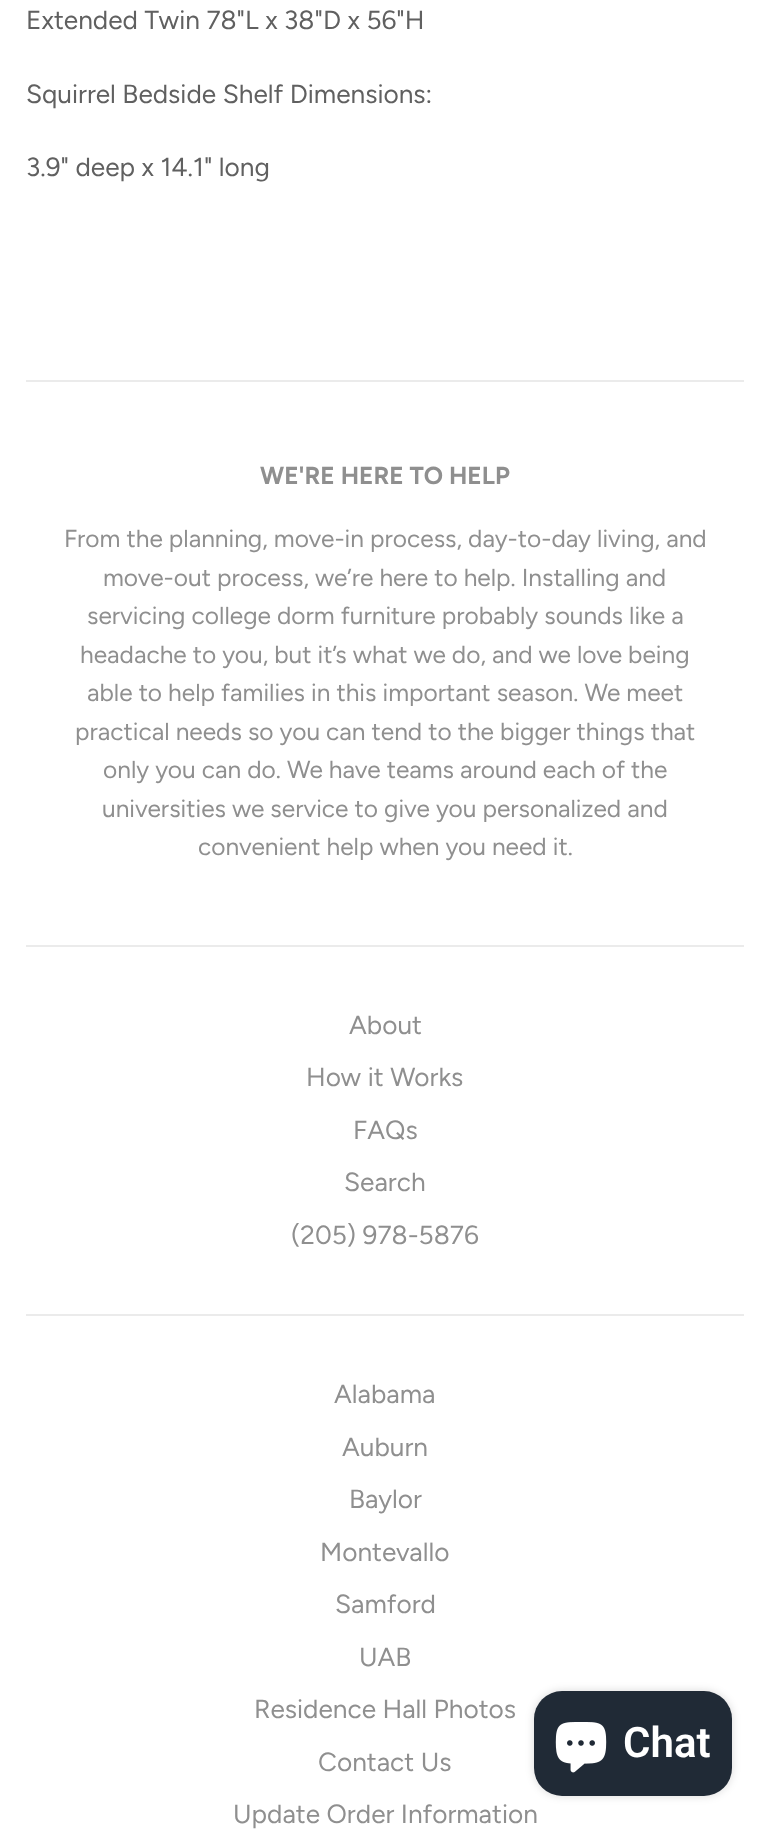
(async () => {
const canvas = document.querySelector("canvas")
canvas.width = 769
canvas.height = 1831
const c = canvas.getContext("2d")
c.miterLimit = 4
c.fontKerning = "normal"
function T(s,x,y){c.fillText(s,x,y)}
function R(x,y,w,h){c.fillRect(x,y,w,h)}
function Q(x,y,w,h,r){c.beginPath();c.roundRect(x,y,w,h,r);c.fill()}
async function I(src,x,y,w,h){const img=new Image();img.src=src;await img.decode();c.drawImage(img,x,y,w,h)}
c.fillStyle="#fff"
R(0,0,769,1831)
c.font="26.25px Figtree"
c.fillStyle="#606060"
T("Extended Twin 78\"L x 38\"D x 56\"H",26,29)
T("Squirrel Bedside Shelf Dimensions:",26,103)
T("3.9\" deep x 14.1\" long",26,176)
c.fillStyle="#ebebeb"
R(26,380,718,2)
c.font="bold 24.5px Figtree"
c.fillStyle="#8f8f8f"
T("WE'RE HERE TO HELP",260,484)
c.font="24.5px Figtree"
T("From the planning, move-in process, day-to-day living, and",64,547)
T("move-out process, we’re here to help. Installing and",103,586)
T("servicing college dorm furniture probably sounds like a",87,624)
T("headache to you, but it’s what we do, and we love being",80,663)
T("able to help families in this important season. We meet",87,701)
T("practical needs so you can tend to the bigger things that",75,740)
T("only you can do. We have teams around each of the",103,778)
T("universities we service to give you personalized and",102,817)
T("convenient help when you need it.",198,855)
c.fillStyle="#ebebeb"
R(26,945,718,2)
c.font="26.25px Figtree"
c.fillStyle="#8f8f8f"
T("About",349,1034)
T("How it Works",306,1086)
T("FAQs",353,1139)
T("Search",344,1191)
T("(205) 978-5876",291,1244)
c.fillStyle="#ebebeb"
R(26,1314,718,2)
c.fillStyle="#8f8f8f"
T("Alabama",334,1403)
T("Auburn",342,1456)
T("Baylor",349,1508)
T("Montevallo",320,1561)
T("Samford",335,1613)
T("UAB",359,1666)
T("Residence Hall Photos",254,1718)
T("Contact Us",318,1771)
T("Update Order Information",233,1823)
c.fillStyle="#00000026"
c.filter="blur(4.5px)"
c.beginPath()
c.roundRect(534,1691,198,105,28)
c.fill()
c.filter="none"
c.fillStyle="#202a36"
Q(534,1691,198,105,28)
await I("1.png",555,1722,52,51)
c.font="600 42px Roboto"
c.fillStyle="#fff"
T("Chat",623,1757)
})()
